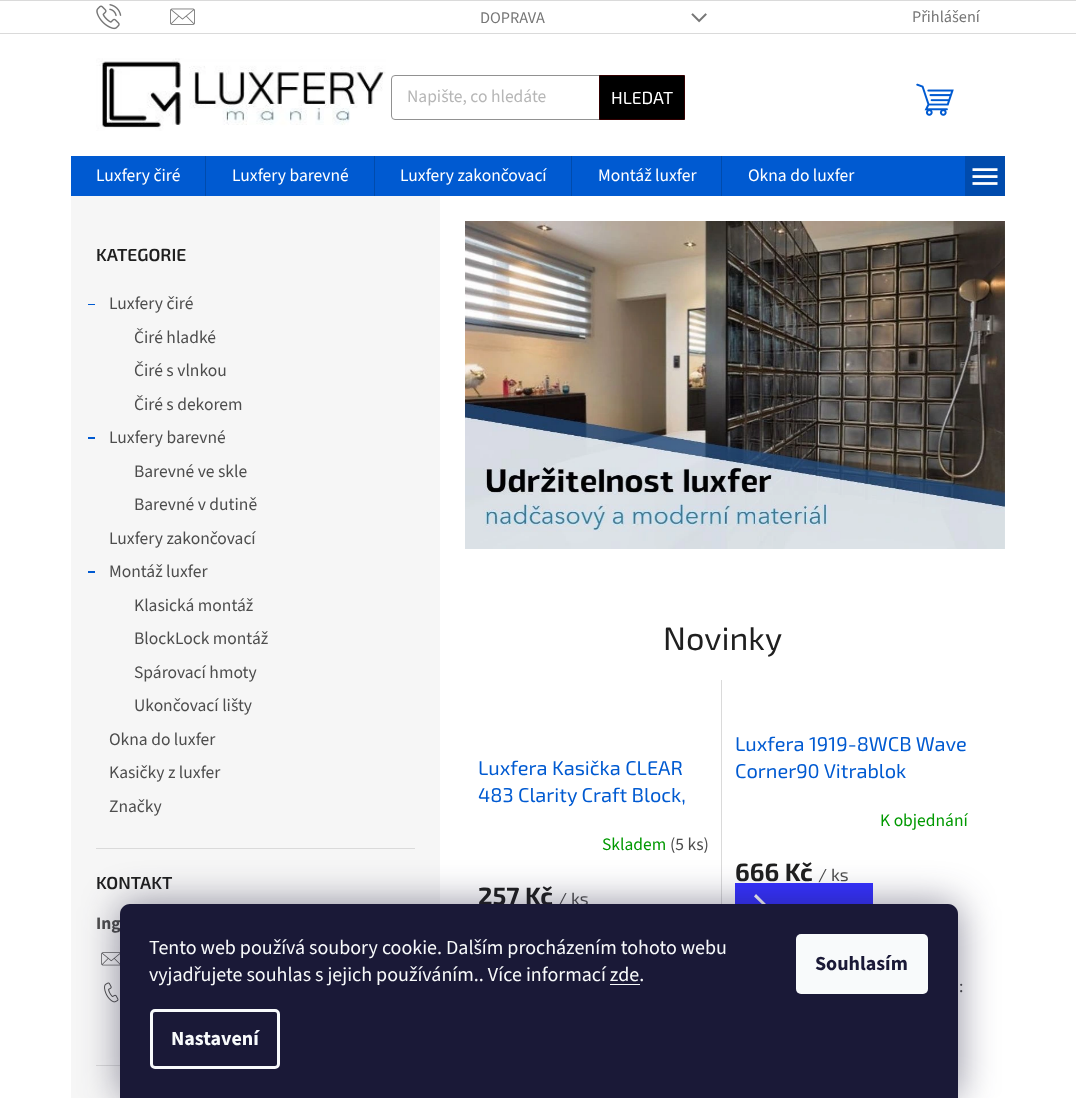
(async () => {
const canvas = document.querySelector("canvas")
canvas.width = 1076
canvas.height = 1098
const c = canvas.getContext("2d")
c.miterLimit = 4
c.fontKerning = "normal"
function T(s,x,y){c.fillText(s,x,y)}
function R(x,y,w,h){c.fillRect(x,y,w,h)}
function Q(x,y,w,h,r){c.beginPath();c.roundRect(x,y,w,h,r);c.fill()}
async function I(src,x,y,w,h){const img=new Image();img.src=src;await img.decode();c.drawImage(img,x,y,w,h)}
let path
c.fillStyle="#fff"
R(0,0,1076,1098)
c.fillStyle="#dadada"
R(0,0,1076,1)
R(0,33,1076,1)
await I("1.png",96,4,26,26)
await I("2.png",170,8,25,17)
c.font="16.25px 'Source Sans 3'"
c.fillStyle="#767676"
T("DOPRAVA",480,23)
await I("3.png",691,13,16,10)
T("Přihlášení",912,22)
await I("4.png",96,58,290,73)
c.beginPath()
c.roundRect(391.5,75.5,293,44,3.5)
c.strokeStyle="#919191"
c.stroke()
c.font="17.5px 'Source Sans 3'"
c.fillStyle="#b6b6b6"
T("Napište, co hledáte",407,102)
c.fillStyle="#000"
c.beginPath()
c.rect(599.5,75.5,85,44)
c.fill()
c.strokeStyle="#330001"
c.stroke()
c.font="17.5px 'Exo 2'"
c.fillStyle="#fff"
T("HLEDAT",611,104)
await I("5.png",916,83,38,33)
c.fillStyle="#005ad1"
R(71,156,894,40)
c.font="17.5px 'Source Sans 3'"
c.fillStyle="#fff"
T("Luxfery čiré",96,181)
c.fillStyle="#004bad"
R(205,156,1,40)
c.fillStyle="#fff"
T("Luxfery barevné",232,181)
c.fillStyle="#004bad"
R(374,156,1,40)
c.fillStyle="#fff"
T("Luxfery zakončovací",400,181)
c.fillStyle="#004bad"
R(571,156,1,40)
c.fillStyle="#fff"
T("Montáž luxfer",598,181)
c.fillStyle="#004bad"
R(721,156,1,40)
c.fillStyle="#fff"
T("Okna do luxfer",748,181)
c.fillStyle="#004bad"
R(965,156,40,40)
await I("6.png",972,168,26,17)
c.fillStyle="#f6f6f6"
R(71,196,369,902)
c.fillStyle="#dadada"
R(96,848,319,1)
c.font="600 17.5px 'Exo 2'"
c.fillStyle="#1f1f1f"
T("KATEGORIE",96,261)
c.fillStyle="#005ad1"
R(88,304,7,1)
c.font="17.5px 'Source Sans 3'"
c.fillStyle="#4d4d4d"
T("Luxfery čiré",109,309)
T("Čiré hladké",134,343)
T("Čiré s vlnkou",134,376)
T("Čiré s dekorem",134,410)
c.fillStyle="#005ad1"
R(88,437,7,2)
c.fillStyle="#4d4d4d"
T("Luxfery barevné",109,443)
T("Barevné ve skle",134,477)
T("Barevné v dutině",134,510)
T("Luxfery zakončovací",109,544)
c.fillStyle="#005ad1"
R(88,571,7,2)
c.fillStyle="#4d4d4d"
T("Montáž luxfer",109,577)
T("Klasická montáž",134,611)
T("BlockLock montáž",134,644)
T("Spárovací hmoty",134,678)
T("Ukončovací lišty",134,711)
T("Okna do luxfer",109,745)
T("Kasičky z luxfer",109,778)
T("Značky",109,812)
c.fillStyle="#dadada"
R(96,1065,24,1)
c.font="600 17.5px 'Exo 2'"
c.fillStyle="#1f1f1f"
T("KONTAKT",96,889)
c.font="bold 17.5px 'Source Sans 3'"
c.fillStyle="#4d4d4d"
T("Ing",96,929)
await I("7.png",101,952,19,14)
await I("8.png",104,982,15,21)
await I("9.png",465,221,540,328)
c.font="32.5px 'Exo 2'"
c.fillStyle="#1f1f1f"
T("Novinky",663,650)
c.fillStyle="#dadada"
R(721,680,1,224)
c.font="20px 'Exo 2'"
c.fillStyle="#005ad1"
T("Luxfera Kasička CLEAR",478,775)
T("483 Clarity Craft Block,",478,802)
c.font="17.5px 'Source Sans 3'"
c.fillStyle="#009901"
T("Skladem",602,850)
c.fillStyle="#4d4d4d"
T("(5 ks)",670,850)
c.font="bold 25px 'Exo 2'"
c.fillStyle="#1f1f1f"
T("257 Kč",478,905)
c.font="17.5px 'Exo 2'"
c.fillStyle="#4d4d4d"
T("/ ks",558,905)
c.font="20px 'Exo 2'"
c.fillStyle="#005ad1"
T("Luxfera 1919-8WCB Wave",735,751)
T("Corner90 Vitrablok",735,778)
c.font="17.5px 'Source Sans 3'"
c.fillStyle="#009901"
T("K objednání",880,826)
c.font="bold 25px 'Exo 2'"
c.fillStyle="#1f1f1f"
T("666 Kč",735,881)
c.font="17.5px 'Exo 2'"
c.fillStyle="#4d4d4d"
T("/ ks",818,881)
c.fillStyle="#3531ff"
R(735,883,138,21)
c.fillStyle="#fff"
path = new Path2D("M756 918l-2-2l10-10l-10-9.5l2-2.5l12 12z")
c.fill(path)
c.font="17.5px 'Source Sans 3'"
c.fillStyle="#4d4d4d"
T(":",959,992)
c.fillStyle="#1b193980"
c.filter="blur(19px)"
c.beginPath()
c.roundRect(120,904,838,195,10)
c.fill()
c.filter="none"
c.fillStyle="#1a1937"
path = new Path2D("M130 904h818c5.5 0 10 4.5 10 10v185h-838v-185c0-5.5 4.5-10 10-10z")
c.fill(path)
c.font="20px 'Source Sans 3'"
c.fillStyle="#f8fafb"
T("Tento web používá soubory cookie. Dalším procházením tohoto webu",149,954)
T("vyjadřujete souhlas s jejich používáním.. Více informací zde.",149,981)
R(610,984,30,1)
c.beginPath()
c.roundRect(151.5,1010.5,127,57,3.5)
c.strokeStyle="#f8fafb"
c.lineWidth=3
c.stroke()
c.font="bold 20px 'Source Sans 3'"
T("Nastavení",171,1045)
Q(796,934,132,60,5)
c.fillStyle="#1a1937"
T("Souhlasím",815,970)
})()
